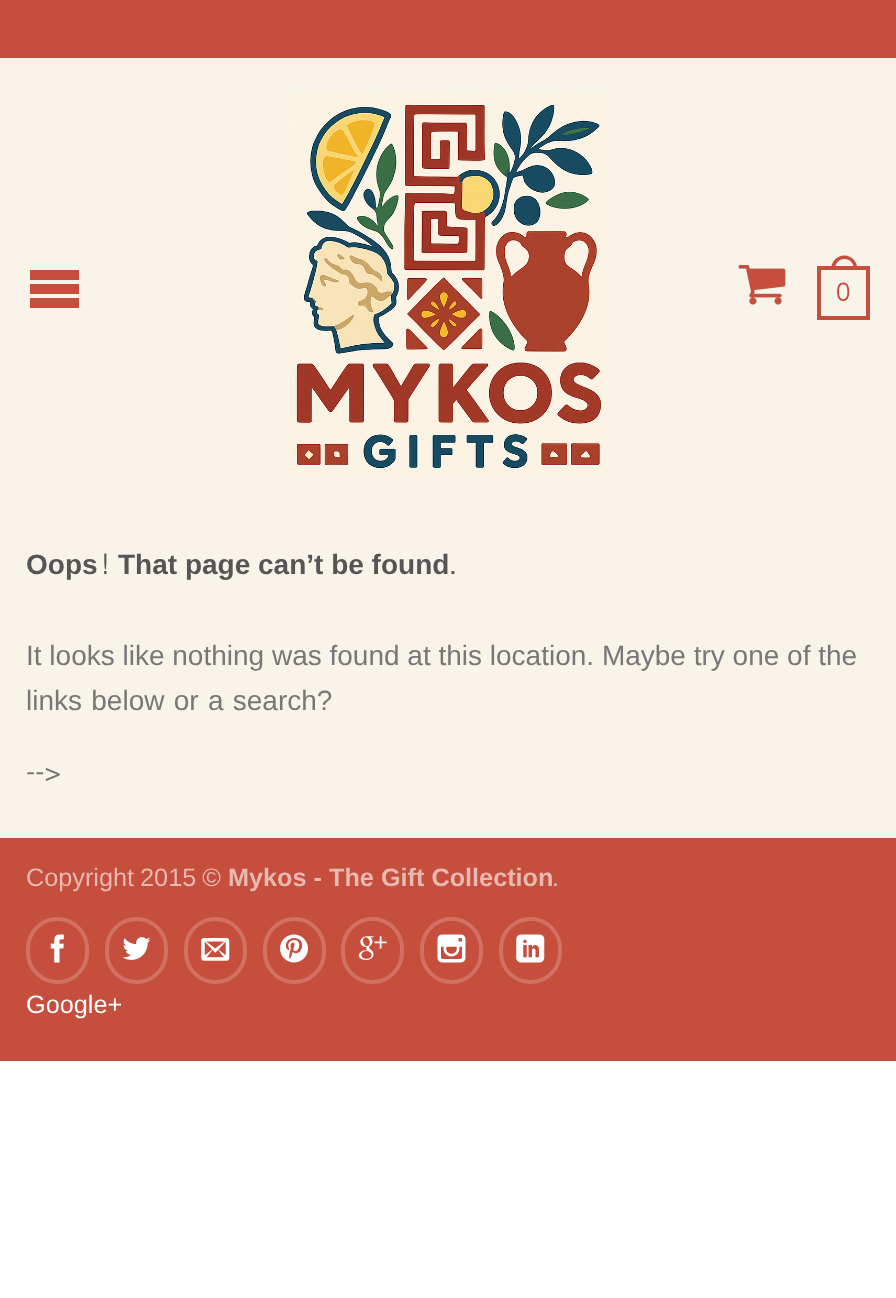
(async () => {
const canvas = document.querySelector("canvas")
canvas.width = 896
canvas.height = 1298
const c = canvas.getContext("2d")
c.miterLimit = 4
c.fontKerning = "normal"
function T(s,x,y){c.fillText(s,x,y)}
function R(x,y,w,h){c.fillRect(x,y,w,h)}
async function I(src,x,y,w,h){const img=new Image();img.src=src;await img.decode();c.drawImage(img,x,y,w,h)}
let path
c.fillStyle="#fff"
R(0,0,896,1298)
c.fillStyle="#c54e3d"
R(0,0,896,58)
c.fillStyle="#f9f4ea"
R(0,58,896,780)
c.fillStyle="#c54e3d"
path = new Path2D("M30 270h49v10h-49zm0 14h49v10h-49zm0 14h49v10h-49z")
c.fill(path)
await I("1.png",287,93,322,385)
await I("2.png",738,265,48,40)
path = new Path2D("M844.5 255.5c7.5 0 13 6.5 13 14h-26.5c0-7.5 5.5-14 13.5-14zm0 3.5c6 0 9.5 5 9.5 10.5h-19c0-5.5 3.5-10.5 9.5-10.5z")
c.fill(path,"evenodd")
c.strokeStyle="#c54e3d"
c.lineWidth=4
c.strokeRect(819,268,49,50)
c.font="bold 25.25px Content"
T("0",836,301)
c.font="bold 28px Liberation Sans"
c.fillStyle="#555"
T("Oops",26,574)
c.font="bold 28px Content"
T("!",98,574)
c.font="bold 28px Liberation Sans"
T("That page can’t be found",118,574)
c.font="bold 28px Content"
T(".",449,574)
c.font="28px Liberation Sans"
c.fillStyle="#777"
T("It looks like nothing was found at this location. Maybe try one of the",26,665)
c.wordSpacing="1.5px"
T("links below or a search?",26,710)
c.wordSpacing="0px"
c.font="28px Content"
T("-->",26,781)
c.fillStyle="#c54e3d"
R(0,838,896,223)
c.wordSpacing="-1px"
c.font="25.25px Liberation Sans"
c.fillStyle="#e8b8b1"
T("Copyright 2015 ©",26,886)
c.wordSpacing="0px"
c.font="bold 25.25px Liberation Sans"
T("Mykos - The Gift Collection",228,886)
c.font="25.25px Content"
T(".",552,886)
c.beginPath()
c.roundRect(28,919,59,63,29.5)
c.strokeStyle="#d17164"
c.stroke()
await I("3.png",50,934,14,29)
c.beginPath()
c.roundRect(107,919,59,63,29.5)
c.stroke()
await I("4.png",122,937,29,23)
c.beginPath()
c.roundRect(186,919,59,63,29.5)
c.stroke()
await I("5.png",201,938,29,23)
c.beginPath()
c.roundRect(265,919,59,63,29.5)
c.stroke()
await I("6.png",280,934,28,29)
c.beginPath()
c.roundRect(343,919,59,63,29.5)
c.stroke()
await I("7.png",358,936,29,24)
c.beginPath()
c.roundRect(422,919,59,63,29.5)
c.stroke()
await I("8.png",437,934,29,29)
c.beginPath()
c.roundRect(501,919,59,63,29.5)
c.stroke()
await I("9.png",516,934,29,29)
c.font="25.25px Liberation Sans"
c.fillStyle="#fff"
T("Google+",26,1013)
})()
